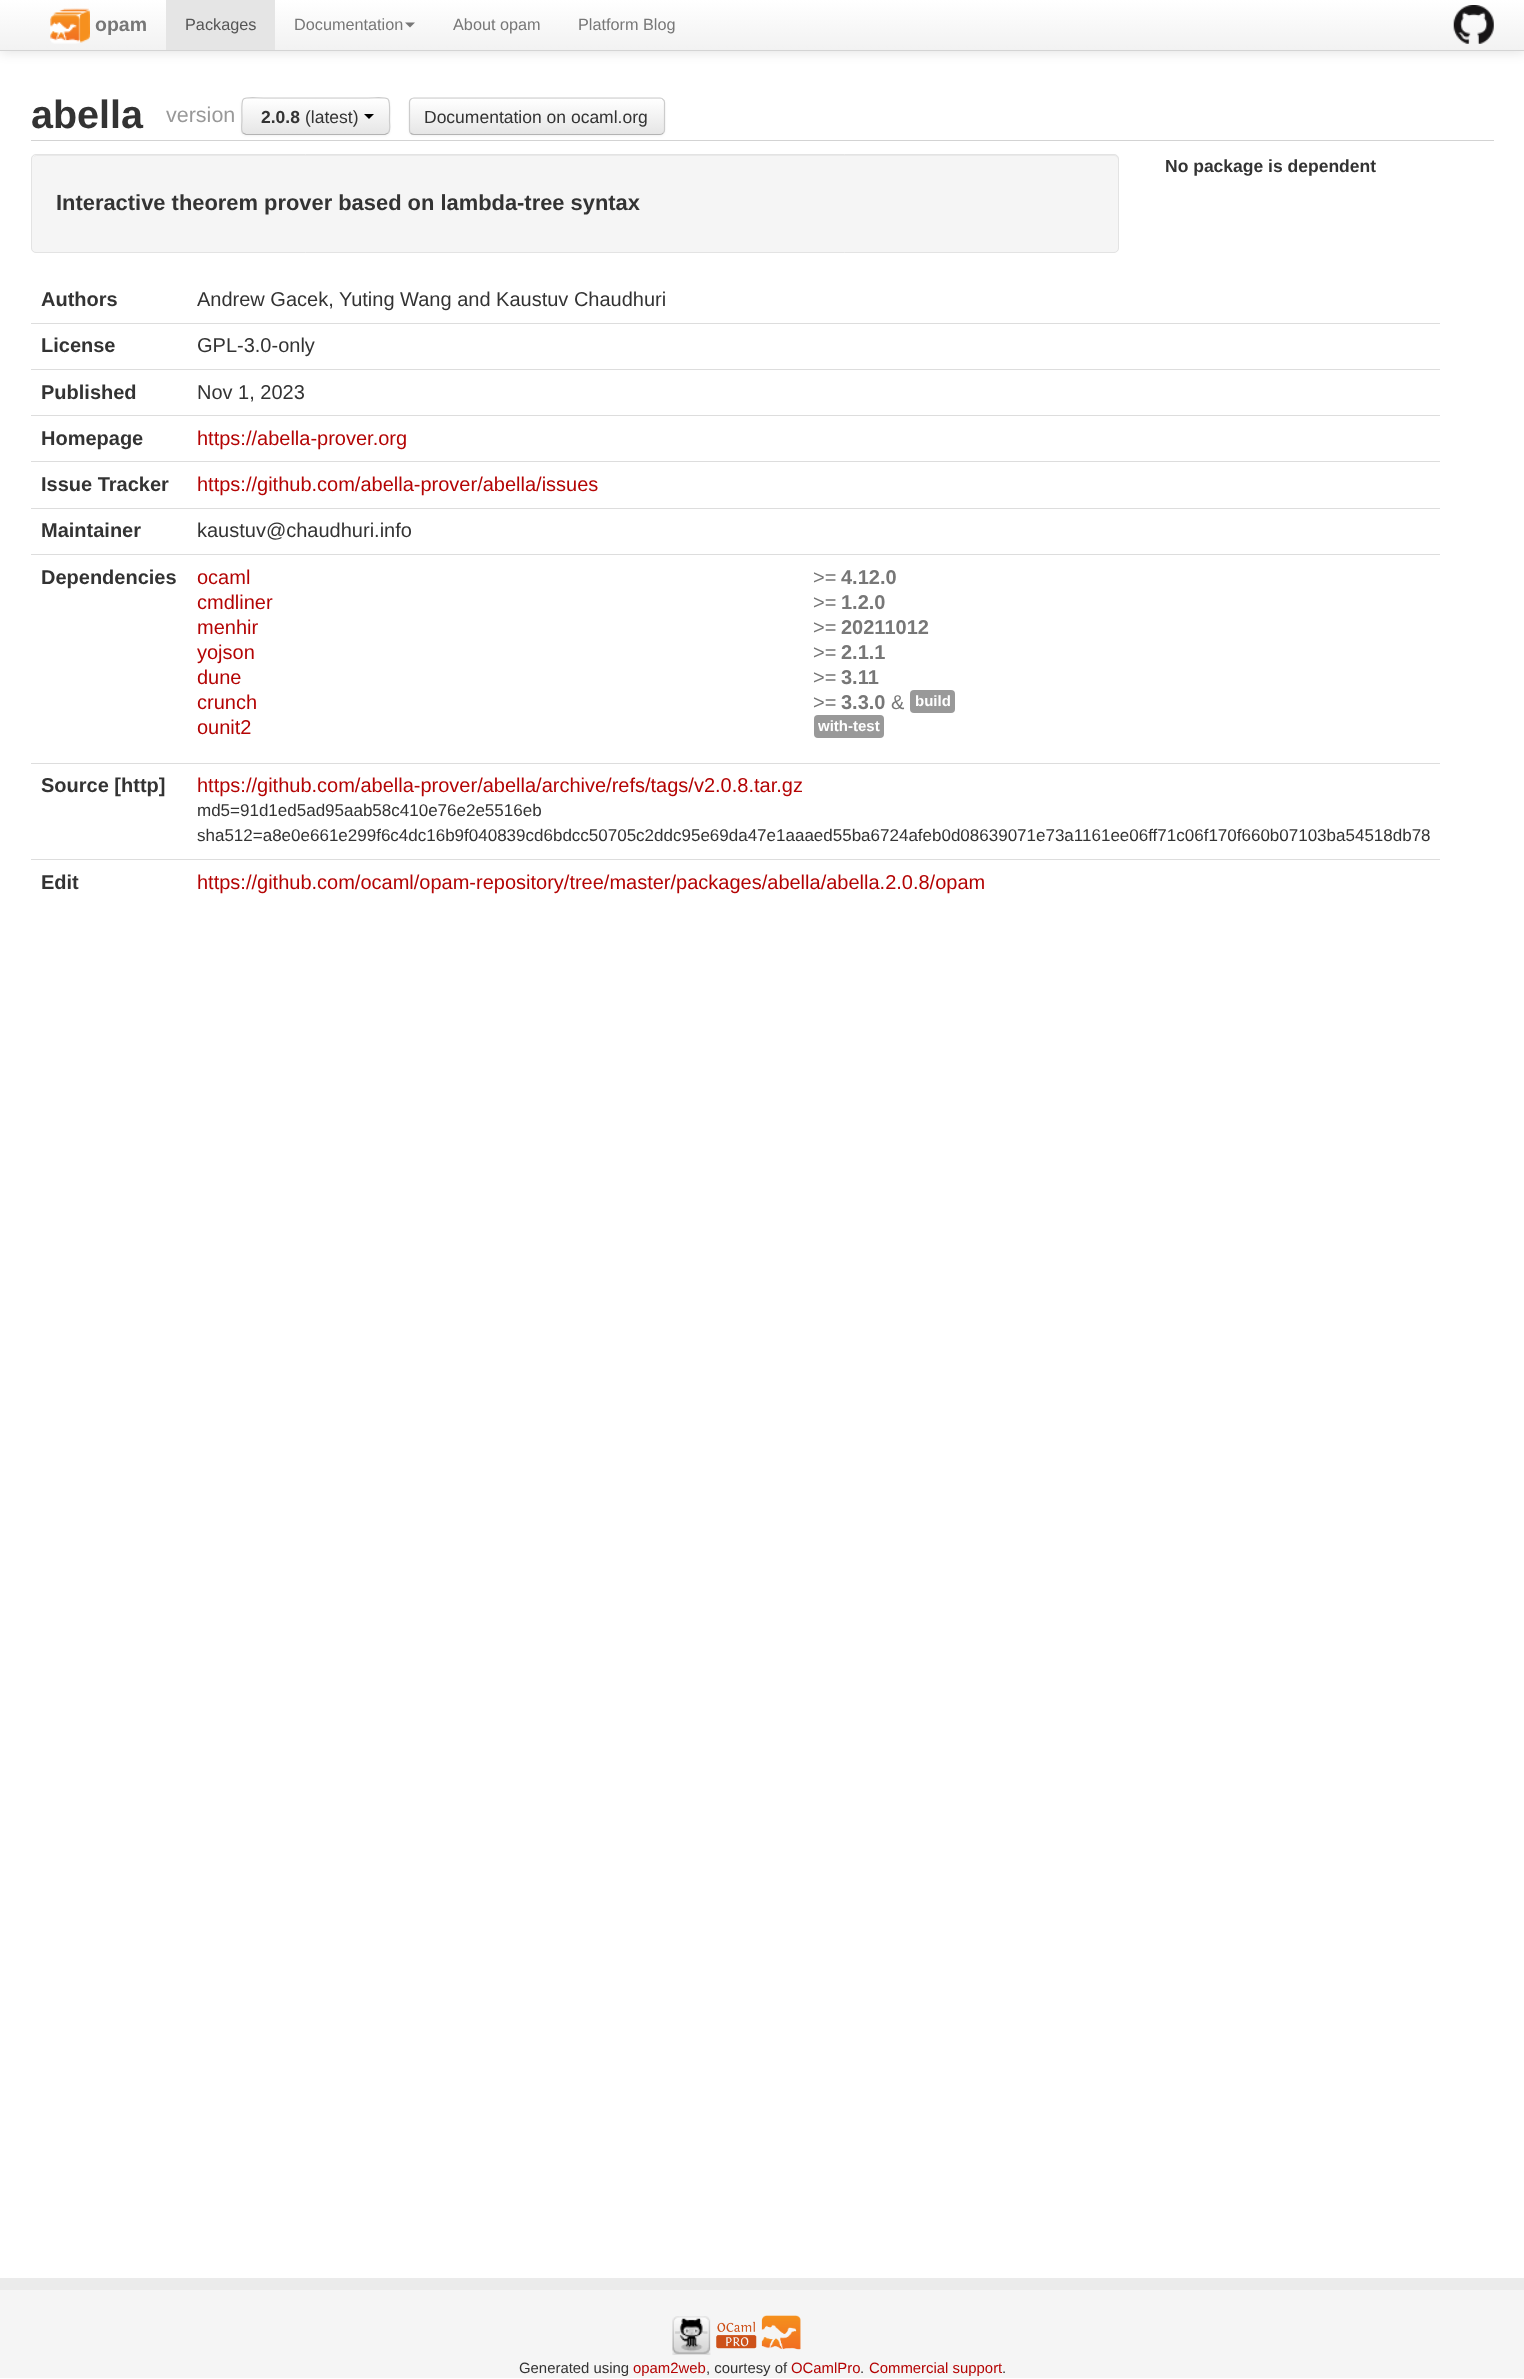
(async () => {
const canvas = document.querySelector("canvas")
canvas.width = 1524
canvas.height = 2379
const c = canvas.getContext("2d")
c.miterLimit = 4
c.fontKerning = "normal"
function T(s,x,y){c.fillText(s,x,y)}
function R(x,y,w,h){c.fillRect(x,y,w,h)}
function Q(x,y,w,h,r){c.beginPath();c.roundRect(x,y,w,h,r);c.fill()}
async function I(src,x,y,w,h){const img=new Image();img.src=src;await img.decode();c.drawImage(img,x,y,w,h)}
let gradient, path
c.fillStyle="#fff"
R(0,0,1524,2379)
c.fillStyle="#0000001a"
c.filter="blur(6px)"
c.beginPath()
c.rect(0,1,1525,52)
c.fill()
c.filter="none"
gradient = c.createLinearGradient(763,0,763,50)
gradient.addColorStop(0,"#fff")
gradient.addColorStop(1,"#f2f2f2")
c.fillStyle = gradient
R(0,0,1524,50)
c.fillStyle="#d4d4d4"
R(0,50,1524,1)
await I("1.png",50,8,40,36)
c.font="bold 19.5px Liberation Sans"
c.fillStyle="#777"
T("opam",95,31)
c.fillStyle="#e5e5e5"
R(166,0,109,50)
c.font="16.25px Liberation Sans"
c.fillStyle="#555"
T("Packages",185,30)
c.fillStyle="#777"
T("Documentation",294,30)
path = new Path2D("M405 22.5h10l-5 5z")
c.fill(path)
T("About opam",453,30)
T("Platform Blog",578,30)
await I("2.png",1453,5,41,39)
c.fillStyle="#d3d3d3"
R(31,140,1463,1)
c.font="bold 39.5px Liberation Sans"
c.fillStyle="#333"
T("abella",31,128)
c.font="21.5px Liberation Sans"
c.fillStyle="#999"
T("version",166,122)
c.fillStyle="#0000000d"
c.filter="blur(1px)"
c.beginPath()
c.roundRect(241,99,149,37,5)
c.fill()
c.filter="none"
c.fillStyle="#f5f5f5"
Q(241,98,149,37,5)
c.save()
c.beginPath()
c.roundRect(241,98,149,37,5)
c.clip()
gradient = c.createLinearGradient(316,99,316,134)
gradient.addColorStop(0,"#fff")
gradient.addColorStop(1,"#e6e6e6")
c.fillStyle = gradient
R(241,99,149,35)
c.restore()
path = new Path2D("M388 133l-3 1.5h-139l-3-1.5")
c.strokeStyle="#b3b3b3"
c.lineWidth=1.2
c.stroke(path)
path = new Path2D("M243 133c-2.5-2.5-1-9-1-12c0-28.5-4.5-23 27.5-23h92.5c31.5 0 27.5-5.5 27.5 23c0 3 1.5 9.5-1.5 12")
c.strokeStyle="#ccc"
c.stroke(path)
c.font="bold 17.5px Liberation Sans"
c.fillStyle="#333"
T("2.0.8",261,123)
c.font="17.5px Liberation Sans"
T("(latest)",305,123)
c.fillStyle="#000"
path = new Path2D("M364 114h10l-5 5z")
c.fill(path)
c.fillStyle="#0000000d"
c.filter="blur(1px)"
c.beginPath()
c.roundRect(409,99,256,37,5)
c.fill()
c.filter="none"
c.fillStyle="#f5f5f5"
Q(409,98,256,37,5)
c.save()
c.beginPath()
c.roundRect(409,98,256,37,5)
c.clip()
gradient = c.createLinearGradient(537,99,537,134)
gradient.addColorStop(0,"#fff")
gradient.addColorStop(1,"#e6e6e6")
c.fillStyle = gradient
R(409,99,256,35)
c.restore()
path = new Path2D("M663 133c-.5 1-2 1.5-3 1.5h-246c-1.5 0-2.5-.5-3.5-1.5")
c.strokeStyle="#b3b3b3"
c.stroke(path)
path = new Path2D("M410.5 133c-.5-.5-1-2-1-3v-27.5c0-1 .5-2.5 1-3c1-1 2-1.5 3.5-1.5h246c1 0 2.5 .5 3 1.5c1 .5 1.5 2 1.5 3v27.5c0 1-.5 2.5-1.5 3")
c.strokeStyle="#ccc"
c.stroke(path)
c.fillStyle="#333"
T("Documentation on ocaml.org",424,123)
c.font="bold 17.5px Liberation Sans"
T("No package is dependent",1165,172)
c.fillStyle="#f5f5f5"
Q(31,154,1088,99,5)
c.fillStyle="#e9e9e9"
path = new Path2D("M36 156h1078c2 0 4 2 4 4v-1c0-2-2-4-4-4h-1077c-1 0-3 1-3 2z")
c.fill(path)
c.beginPath()
c.roundRect(31.5,154.5,1087,98,4.5)
c.strokeStyle="#e3e3e3"
c.lineWidth=1
c.stroke()
c.font="bold 21.9px Liberation Sans"
c.fillStyle="#333"
T("Interactive theorem prover based on lambda-tree syntax",56,210)
c.font="bold 20px Liberation Sans"
T("Authors",41,306)
c.font="20px Liberation Sans"
T("Andrew Gacek, Yuting Wang and Kaustuv Chaudhuri",197,306)
c.font="bold 20px Liberation Sans"
T("License",41,352)
c.fillStyle="#ddd"
R(31,323,1409,1)
c.font="20px Liberation Sans"
c.fillStyle="#333"
T("GPL-3.0-only",197,352)
c.font="bold 20px Liberation Sans"
T("Published",41,399)
c.fillStyle="#ddd"
R(31,369,1409,1)
c.font="20px Liberation Sans"
c.fillStyle="#333"
T("Nov 1, 2023",197,399)
c.font="bold 20px Liberation Sans"
T("Homepage",41,445)
c.fillStyle="#ddd"
R(31,415,1409,1)
c.font="20px Liberation Sans"
c.fillStyle="#b40404"
T("https://abella-prover.org",197,445)
c.font="bold 20px Liberation Sans"
c.fillStyle="#333"
T("Issue Tracker",41,491)
c.fillStyle="#ddd"
R(31,461,1409,1)
c.font="20px Liberation Sans"
c.fillStyle="#b40404"
T("https://github.com/abella-prover/abella/issues",197,491)
c.font="bold 20px Liberation Sans"
c.fillStyle="#333"
T("Maintainer",41,537)
c.fillStyle="#ddd"
R(31,508,1409,1)
c.font="20px Liberation Sans"
c.fillStyle="#333"
T("kaustuv@chaudhuri.info",197,537)
c.font="bold 20px Liberation Sans"
T("Dependencies",41,584)
c.fillStyle="#ddd"
R(31,554,1409,1)
c.font="20px Liberation Sans"
c.fillStyle="#b40404"
T("ocaml",197,584)
c.fillStyle="#777"
T(">=",813,584)
c.font="bold 20px Liberation Sans"
T("4.12.0",841,584)
c.font="20px Liberation Sans"
c.fillStyle="#b40404"
T("cmdliner",197,609)
c.fillStyle="#777"
T(">=",813,609)
c.font="bold 20px Liberation Sans"
T("1.2.0",841,609)
c.font="20px Liberation Sans"
c.fillStyle="#b40404"
T("menhir",197,634)
c.fillStyle="#777"
T(">=",813,634)
c.font="bold 20px Liberation Sans"
T("20211012",841,634)
c.font="20px Liberation Sans"
c.fillStyle="#b40404"
T("yojson",197,659)
c.fillStyle="#777"
T(">=",813,659)
c.font="bold 20px Liberation Sans"
T("2.1.1",841,659)
c.font="20px Liberation Sans"
c.fillStyle="#b40404"
T("dune",197,684)
c.fillStyle="#777"
T(">=",813,684)
c.font="bold 20px Liberation Sans"
T("3.11",841,684)
c.font="20px Liberation Sans"
c.fillStyle="#b40404"
T("crunch",197,709)
c.fillStyle="#777"
T(">=",813,709)
c.font="bold 20px Liberation Sans"
T("3.3.0",841,709)
c.font="20px Liberation Sans"
T("&",891,709)
c.fillStyle="#999"
Q(910,690,45,23,4)
c.font="bold 15px Liberation Sans"
c.fillStyle="#fff"
T("build",915,706)
c.font="20px Liberation Sans"
c.fillStyle="#b40404"
T("ounit2",197,734)
c.fillStyle="#999"
Q(814,715,70,23,4)
c.font="bold 15px Liberation Sans"
c.fillStyle="#fff"
T("with-test",818,731)
c.font="bold 20px Liberation Sans"
c.fillStyle="#333"
T("Source [http]",41,792)
c.fillStyle="#ddd"
R(31,763,1409,1)
c.font="20px Liberation Sans"
c.fillStyle="#b40404"
T("https://github.com/abella-prover/abella/archive/refs/tags/v2.0.8.tar.gz",197,792)
c.font="17px Liberation Sans"
c.fillStyle="#333"
T("md5=91d1ed5ad95aab58c410e76e2e5516eb",197,816)
T("sha512=a8e0e661e299f6c4dc16b9f040839cd6bdcc50705c2ddc95e69da47e1aaaed55ba6724afeb0d08639071e73a1161ee06ff71c06f170f660b07103ba54518db78",197,841)
c.font="bold 20px Liberation Sans"
T("Edit",41,889)
c.fillStyle="#ddd"
R(31,859,1409,1)
c.font="20px Liberation Sans"
c.fillStyle="#b40404"
T("https://github.com/ocaml/opam-repository/tree/master/packages/abella/abella.2.0.8/opam",197,889)
c.fillStyle="#f5f5f5"
R(0,2290,1524,88)
c.fillStyle="#ebebeb"
R(0,2278,1524,12)
await I("3.png",672,2316,39,39)
await I("4.png",716,2321,41,28)
await I("5.png",761,2315,40,35)
c.font="14.9px Liberation Sans"
c.fillStyle="#333"
T("Generated using",519,2373)
c.fillStyle="#b40404"
T("opam2web",633,2373)
c.fillStyle="#333"
T(", courtesy of",706,2373)
c.fillStyle="#b40404"
T("OCamlPro",791,2373)
c.fillStyle="#333"
T(".",860,2373)
c.fillStyle="#b40404"
T("Commercial support",869,2373)
c.fillStyle="#333"
T(".",1002,2373)
})()
